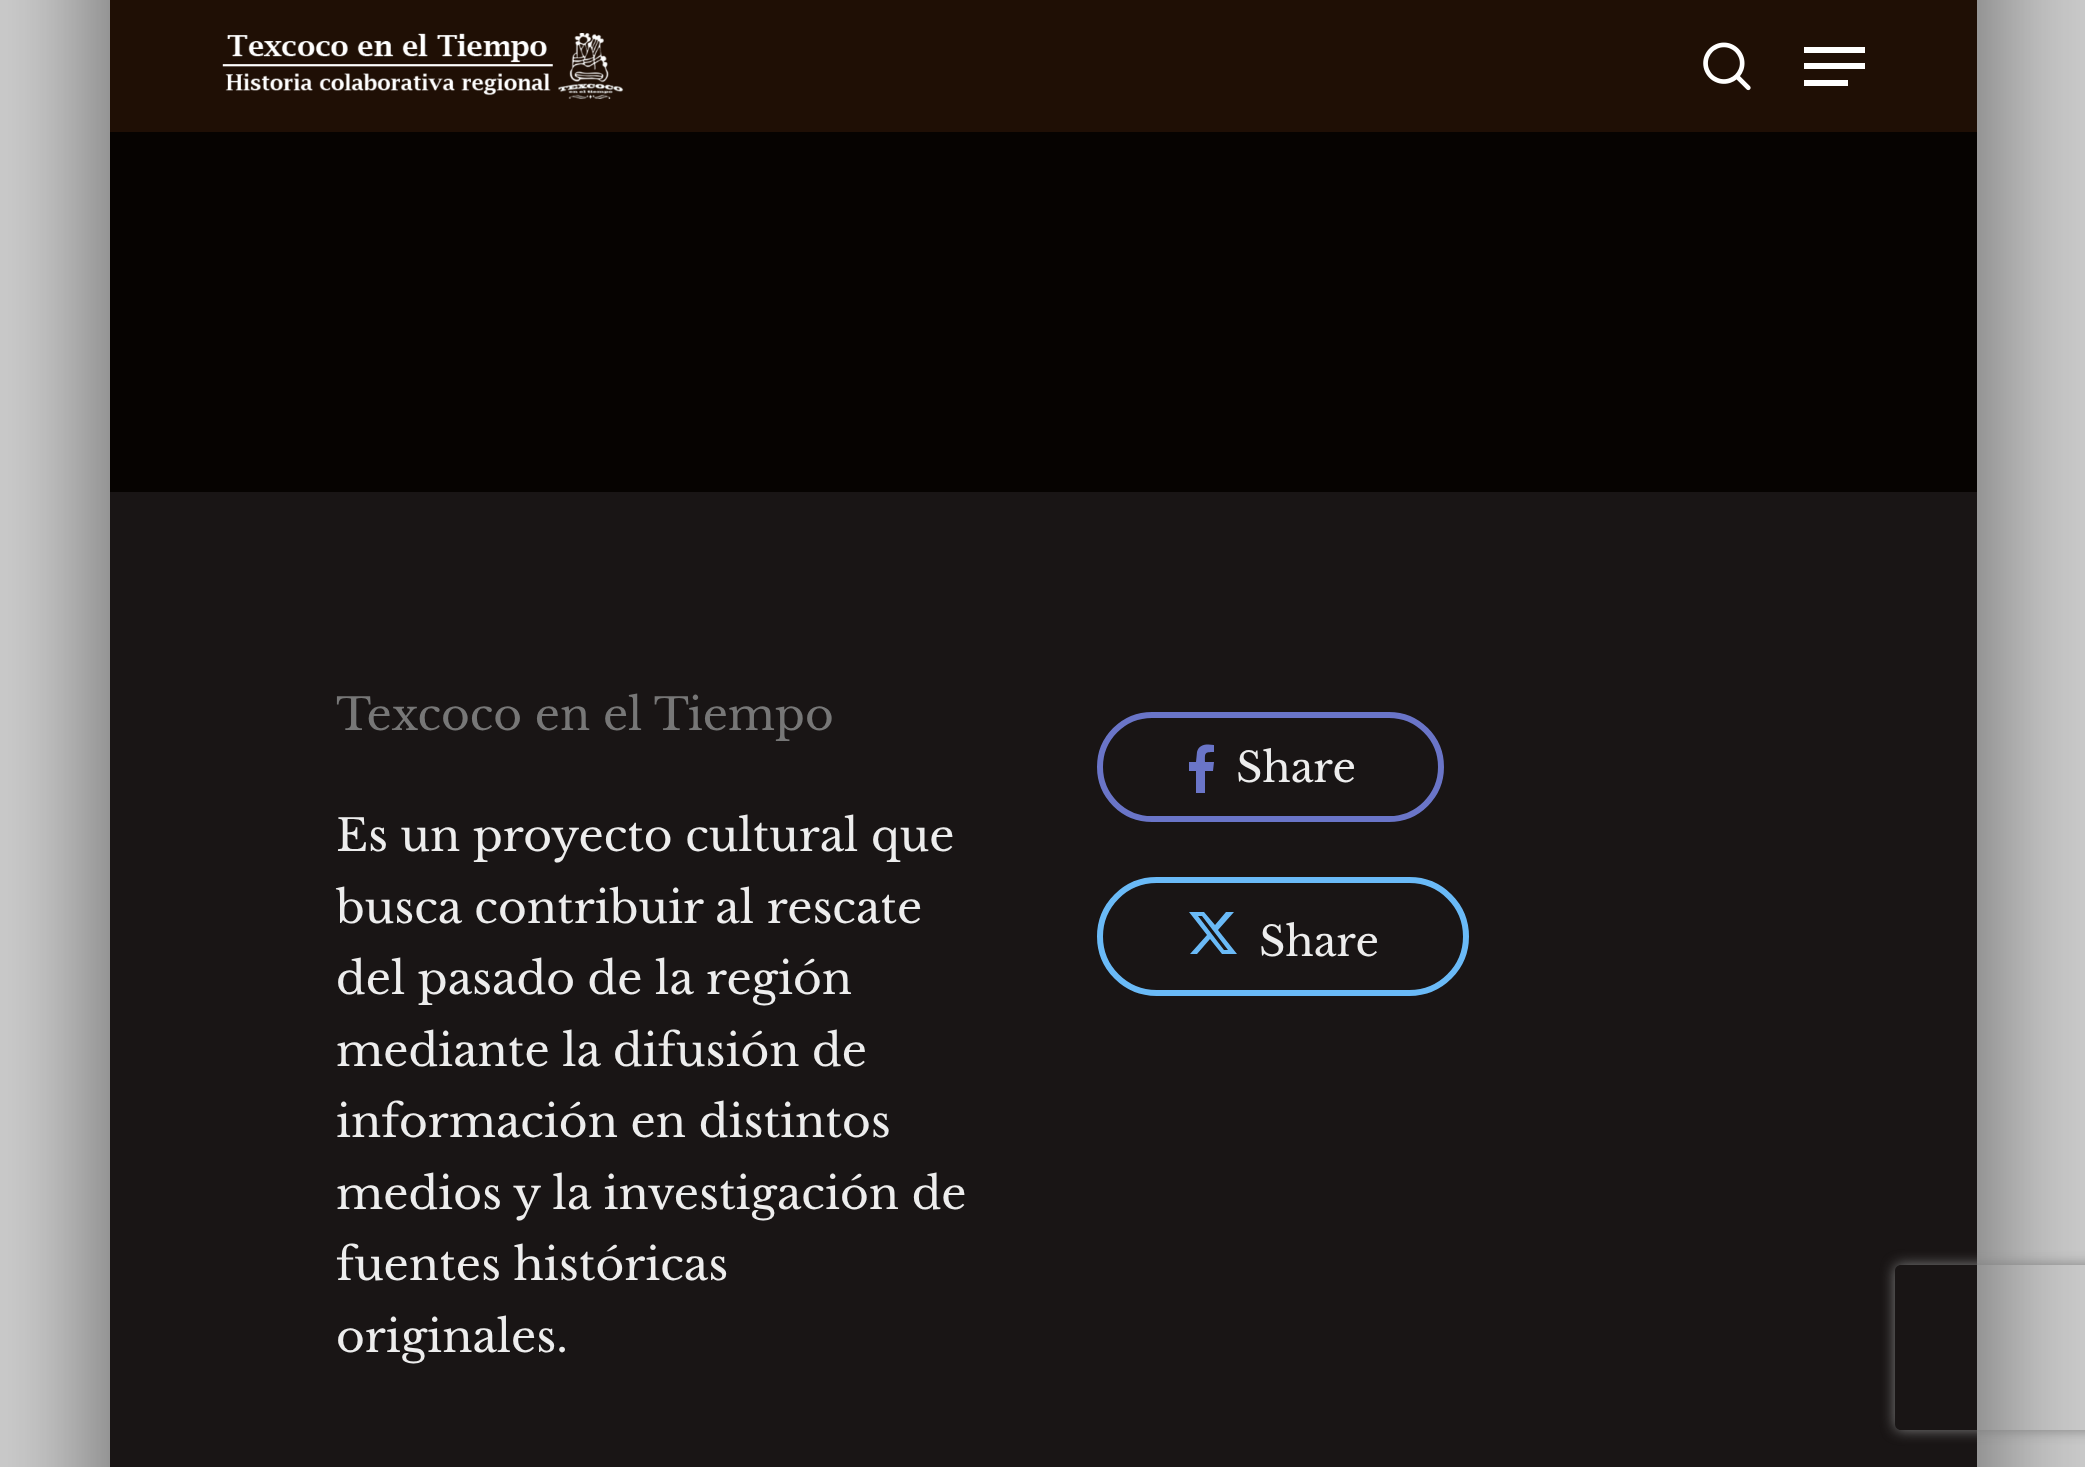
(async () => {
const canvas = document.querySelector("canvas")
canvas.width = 2085
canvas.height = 1467
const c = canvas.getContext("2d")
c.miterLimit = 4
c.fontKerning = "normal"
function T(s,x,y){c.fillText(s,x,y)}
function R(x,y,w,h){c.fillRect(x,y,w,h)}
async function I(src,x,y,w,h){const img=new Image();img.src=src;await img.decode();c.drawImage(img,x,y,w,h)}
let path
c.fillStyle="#ccc"
R(0,0,2085,1467)
c.fillStyle="#00000070"
c.filter="blur(55px)"
c.beginPath()
c.rect(94,-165,1900,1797)
c.fill()
c.filter="none"
c.fillStyle="#1f0f05"
R(110,0,1867,132)
await I("1.png",222,33,402,66)
await I("2.png",1703,42,48,49)
c.fillStyle="#fff"
R(1804,47,61,6)
R(1804,80,44,6)
R(1804,63,61,6)
c.fillStyle="#060301"
R(110,132,1867,360)
c.fillStyle="#191515"
R(110,492,1867,975)
c.font="44px Libre Baskerville"
c.fillStyle="#777"
T("Texcoco en el Tiempo",336,730)
c.fillStyle="#ededed"
T("Es un proyecto cultural que",336,851)
T("busca contribuir al rescate",336,923)
T("del pasado de la región",336,994)
T("mediante la difusión de",336,1066)
T("información en distintos",336,1137)
T("medios y la investigación de",336,1209)
T("fuentes históricas",336,1280)
T("originales.",336,1352)
c.beginPath()
c.roundRect(1100,715,341,104,52)
c.strokeStyle="#6a75c8"
c.lineWidth=6
c.stroke()
c.fillStyle="#6a75c8"
path = new Path2D("M1214 745v7c-10 0-9 1-9 10h9l-1 9h-8v22h-9v-22h-7v-9h7l1-10c2-8 10-8 17-7z")
c.fill(path)
c.font="41px Libre Baskerville"
c.fillStyle="#ededed"
T("Share",1236,782)
c.beginPath()
c.roundRect(1100,880,366,113,56.5)
c.strokeStyle="#6abaf7"
c.stroke()
c.fillStyle="#6abaf7"
path = new Path2D("M1226 912h8l-16 18l19 24h-15l-12-15l-13 15h-7l17-19l-18-23h15l11 13zm-2 38h4l-26-34h-4z")
c.fill(path)
c.fillStyle="#ededed"
T("Share",1259,956)
c.save()
path = new Path2D("M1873 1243h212v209h-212zm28 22h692c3.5 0 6 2.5 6 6v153c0 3.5-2.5 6-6 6h-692c-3.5 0-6-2.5-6-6v-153c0-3.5 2.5-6 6-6z")
c.clip(path,"evenodd")
c.fillStyle="#808080"
c.filter="blur(7px)"
c.beginPath()
c.roundRect(1895,1265,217,165,6)
c.fill()
c.filter="none"
c.restore()
})()
